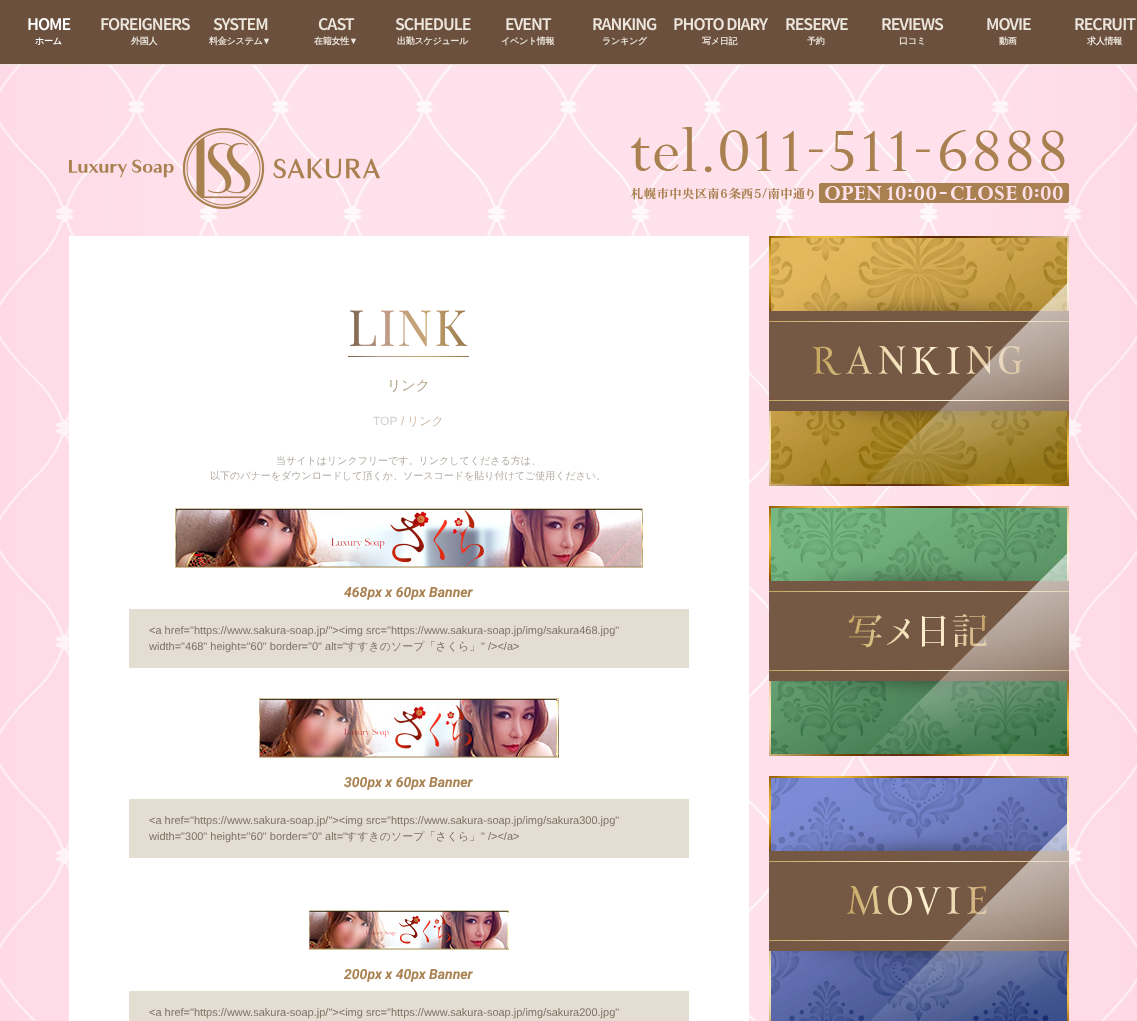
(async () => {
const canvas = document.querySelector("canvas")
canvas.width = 1137
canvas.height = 1021
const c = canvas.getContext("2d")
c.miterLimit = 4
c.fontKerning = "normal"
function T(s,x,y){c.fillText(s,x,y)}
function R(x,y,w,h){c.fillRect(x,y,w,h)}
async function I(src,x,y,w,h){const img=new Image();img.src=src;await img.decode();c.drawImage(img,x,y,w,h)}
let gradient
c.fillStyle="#fff"
R(0,0,1137,1021)
c.fillStyle="#6b503e"
R(0,0,1137,64)
c.fillStyle="#ece6dd"
R(0,64,1137,1)
c.letterSpacing="-1px"
c.font="600 18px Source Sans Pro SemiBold"
c.fillStyle="#fff"
T("HOME",27,30)
c.letterSpacing="-0.25px"
c.font="bold 9px WenQuanYi Zen Hei"
T("ホーム",35,44)
c.letterSpacing="-1px"
c.font="600 18px Source Sans Pro SemiBold"
c.fillStyle="#ece6dd"
T("FOREIGNERS",100,30)
c.letterSpacing="-0.25px"
c.font="bold 9px WenQuanYi Zen Hei"
T("外国人",131,44)
c.letterSpacing="-1px"
c.font="600 18px Source Sans Pro SemiBold"
T("SYSTEM",213,30)
c.letterSpacing="-0.25px"
c.font="bold 9px WenQuanYi Zen Hei"
T("料金システム",209,44)
c.font="bold 9px Liberation Sans"
T("▼",262,44)
c.letterSpacing="-1px"
c.font="600 18px Source Sans Pro SemiBold"
T("CAST",318,30)
c.letterSpacing="-0.25px"
c.font="bold 9px WenQuanYi Zen Hei"
T("在籍女性",314,44)
c.font="bold 9px Liberation Sans"
T("▼",349,44)
c.letterSpacing="-1px"
c.font="600 18px Source Sans Pro SemiBold"
T("SCHEDULE",395,30)
c.letterSpacing="-0.25px"
c.font="bold 9px WenQuanYi Zen Hei"
T("出勤スケジュール",397,44)
c.letterSpacing="-1px"
c.font="600 18px Source Sans Pro SemiBold"
T("EVENT",505,30)
c.letterSpacing="-0.25px"
c.font="bold 9px WenQuanYi Zen Hei"
T("イベント情報",501,44)
c.letterSpacing="-1px"
c.font="600 18px Source Sans Pro SemiBold"
T("RANKING",592,30)
c.letterSpacing="-0.25px"
c.font="bold 9px WenQuanYi Zen Hei"
T("ランキング",602,44)
c.letterSpacing="-1px"
c.font="600 18px Source Sans Pro SemiBold"
T("PHOTO DIARY",673,30)
c.letterSpacing="-0.25px"
c.font="bold 9px WenQuanYi Zen Hei"
T("写メ日記",702,44)
c.letterSpacing="-1px"
c.font="600 18px Source Sans Pro SemiBold"
T("RESERVE",785,30)
c.letterSpacing="-0.25px"
c.font="bold 9px WenQuanYi Zen Hei"
T("予約",807,44)
c.letterSpacing="-1px"
c.font="600 18px Source Sans Pro SemiBold"
T("REVIEWS",881,30)
c.letterSpacing="-0.25px"
c.font="bold 9px WenQuanYi Zen Hei"
T("口コミ",899,44)
c.letterSpacing="-1px"
c.font="600 18px Source Sans Pro SemiBold"
T("MOVIE",986,30)
c.letterSpacing="-0.25px"
c.font="bold 9px WenQuanYi Zen Hei"
T("動画",999,44)
c.letterSpacing="-1px"
c.font="600 18px Source Sans Pro SemiBold"
T("RECRUIT",1074,30)
c.letterSpacing="-0.25px"
c.font="bold 9px WenQuanYi Zen Hei"
T("求人情報",1087,44)
await I("9.png",0,65,1137,956)
await I("1.png",69,128,311,81)
await I("2.png",631,127,438,76)
c.fillStyle="#fff"
R(69,236,680,785)
c.letterSpacing="1.5px"
c.font="50px Playfair Display SC"
gradient = c.createLinearGradient(348,326,469,326)
gradient.addColorStop(0,"#755e47")
gradient.addColorStop(.28,"#c09a88")
gradient.addColorStop(.66,"#c4a572")
gradient.addColorStop(1,"#977548")
c.fillStyle = gradient
T("LINK",348,346)
gradient = c.createLinearGradient(348,357,469,357)
gradient.addColorStop(0,"#755e47")
gradient.addColorStop(.28,"#c09a88")
gradient.addColorStop(.66,"#c4a572")
gradient.addColorStop(1,"#977548")
c.fillStyle = gradient
R(348,356,121,1)
c.letterSpacing="0px"
c.font="500 14px WenQuanYi Zen Hei"
c.fillStyle="#b3a08a"
T("リンク",387,390)
c.font="12px Liberation Sans"
c.fillStyle="#cecece"
T("TOP",373,425)
c.fillStyle="#d1bba9"
T("/",401,425)
c.font="500 12px WenQuanYi Zen Hei"
T("リンク",407,425)
c.font="500 10px WenQuanYi Zen Hei"
c.fillStyle="#b2aba4"
T("当サイトはリンクフリーです。リンクしてくださる方は、",276,464)
T("以下のバナーをダウンロードして頂くか、ソースコードを貼り付けてご使用ください。",210,479)
await I("3.png",175,508,468,60)
c.font="italic bold 14px Roboto"
c.fillStyle="#a98050"
T("468px x 60px Banner",344,597)
c.fillStyle="#e3ddd2"
R(129,609,560,59)
c.font="11px Liberation Sans"
c.fillStyle="#7f7367"
T("<a href=\"https://www.sakura-soap.jp/\"><img src=\"https://www.sakura-soap.jp/img/sakura468.jpg\"",149,634)
T("width=\"468\" height=\"60\" border=\"0\" alt=\"",149,650)
c.font="500 11px WenQuanYi Zen Hei"
T("すすきのソープ「さくら」",346,650)
c.font="11px Liberation Sans"
T("\" /><\/a>",481,650)
await I("4.png",259,698,300,60)
c.font="italic bold 14px Roboto"
c.fillStyle="#a98050"
T("300px x 60px Banner",344,787)
c.fillStyle="#e3ddd2"
R(129,799,560,59)
c.font="11px Liberation Sans"
c.fillStyle="#7f7367"
T("<a href=\"https://www.sakura-soap.jp/\"><img src=\"https://www.sakura-soap.jp/img/sakura300.jpg\"",149,824)
T("width=\"300\" height=\"60\" border=\"0\" alt=\"",149,840)
c.font="500 11px WenQuanYi Zen Hei"
T("すすきのソープ「さくら」",346,840)
c.font="11px Liberation Sans"
T("\" /><\/a>",481,840)
await I("5.png",309,910,200,40)
c.font="italic bold 14px Roboto"
c.fillStyle="#a98050"
T("200px x 40px Banner",344,979)
c.fillStyle="#e3ddd2"
R(129,991,560,30)
c.font="11px Liberation Sans"
c.fillStyle="#7f7367"
T("<a href=\"https://www.sakura-soap.jp/\"><img src=\"https://www.sakura-soap.jp/img/sakura200.jpg\"",149,1016)
await I("6.png",769,236,300,250)
await I("7.png",769,506,300,250)
await I("8.png",769,776,300,245)
})()
